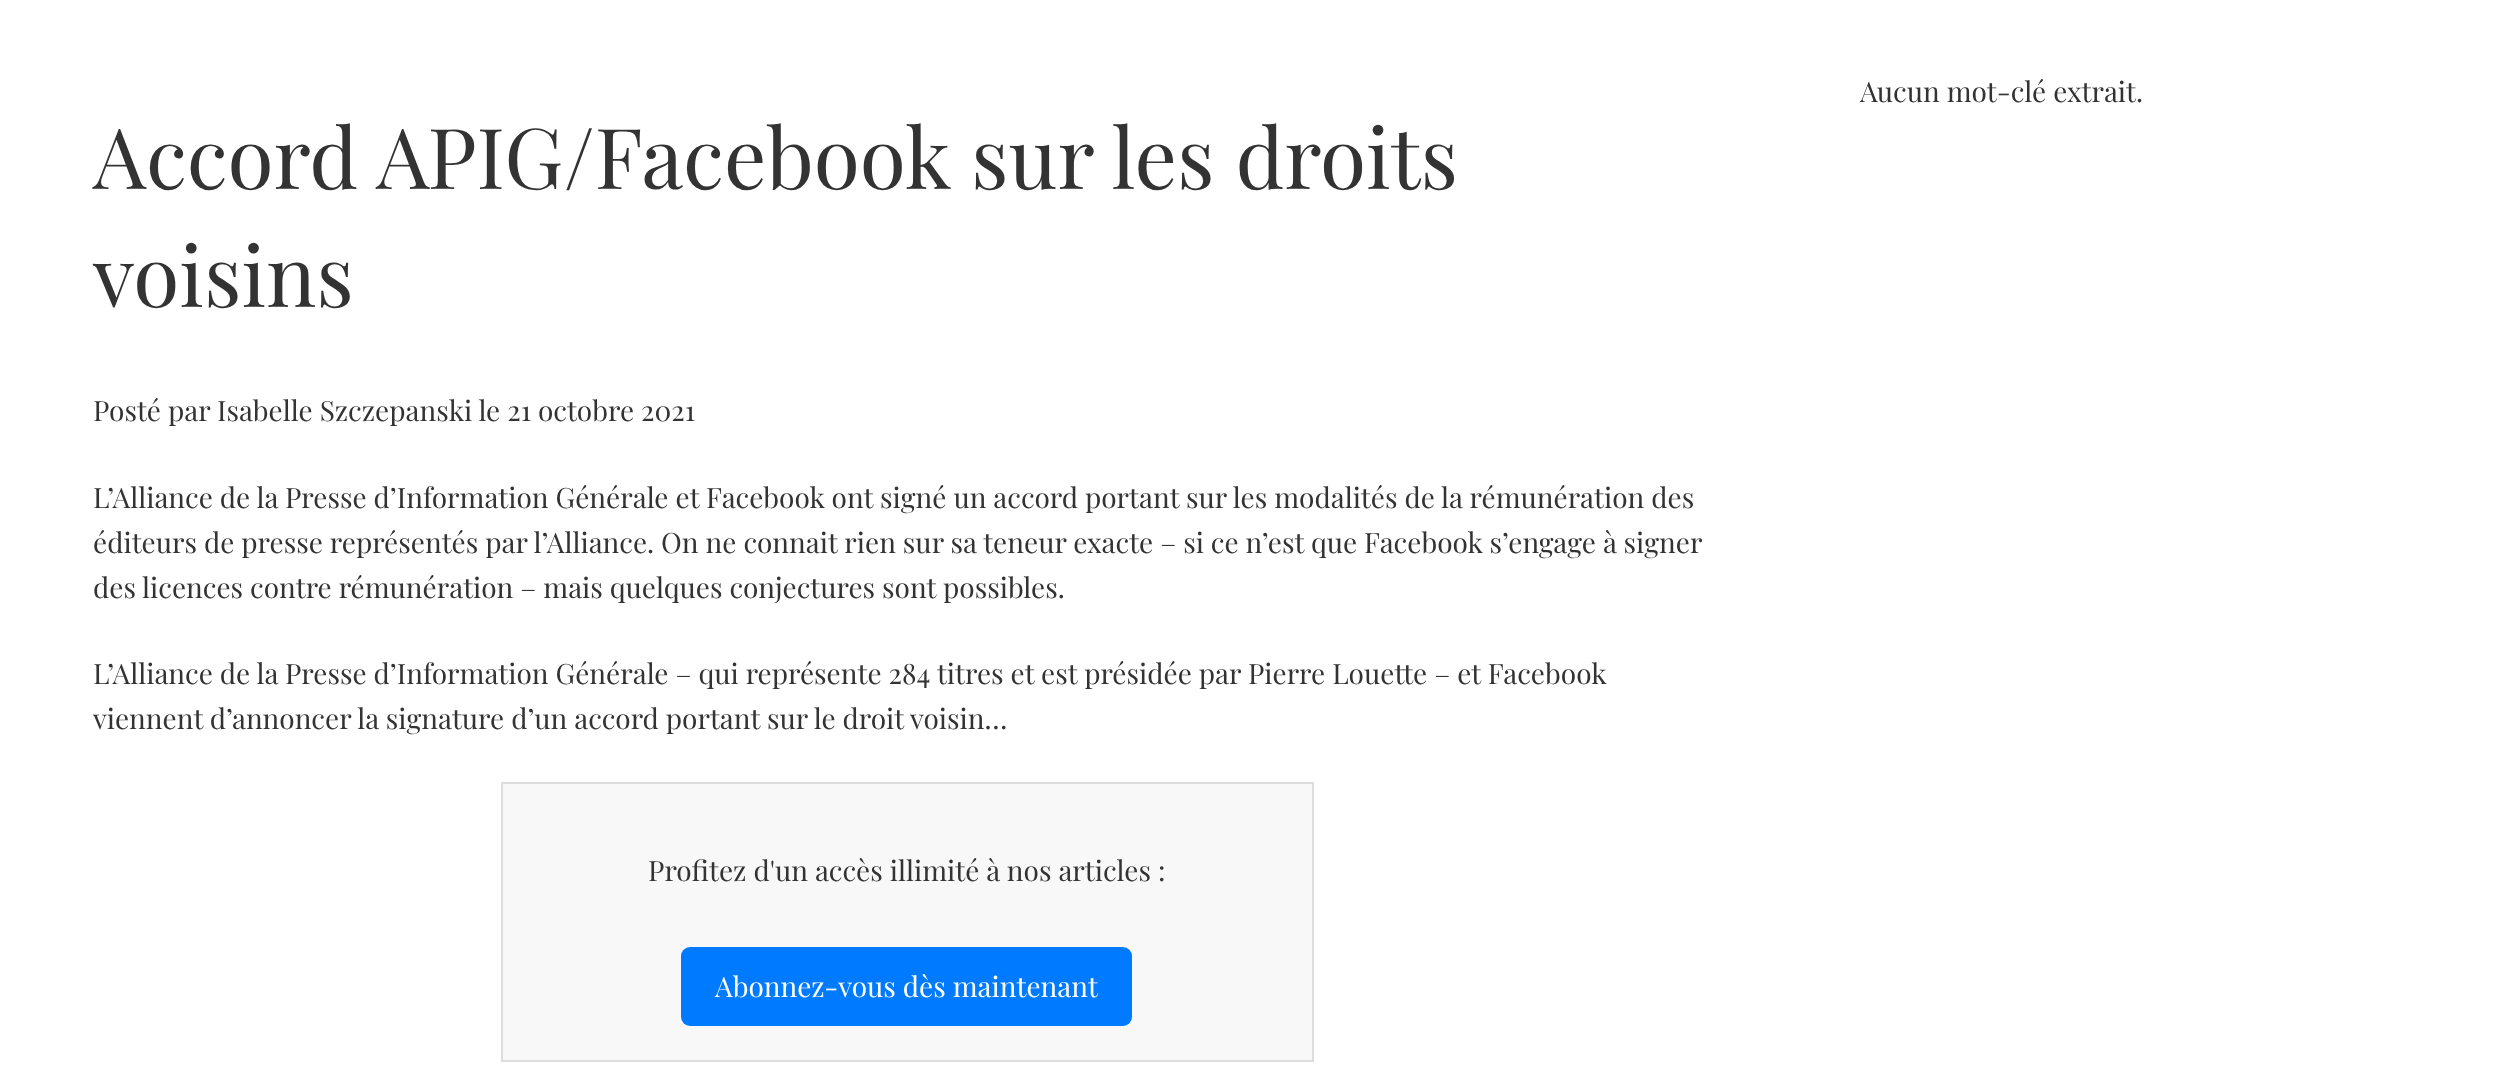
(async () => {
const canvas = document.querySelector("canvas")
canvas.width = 2494
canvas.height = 1072
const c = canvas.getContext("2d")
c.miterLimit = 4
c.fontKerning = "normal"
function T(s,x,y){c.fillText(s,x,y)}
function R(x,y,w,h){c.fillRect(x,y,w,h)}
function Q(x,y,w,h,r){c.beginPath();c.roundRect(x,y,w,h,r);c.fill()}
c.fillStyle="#fff"
R(0,0,2494,1072)
c.font="28px Playfair Display"
c.fillStyle="#333"
T("Aucun mot-clé extrait.",1860,102)
c.font="84px Playfair Display"
T("Accord APIG/Facebook sur les droits",93,189)
T("voisins",93,307)
c.font="28px Playfair Display"
T("Posté par Isabelle Szczepanski le 21 octobre 2021",93,421)
T("L’Alliance de la Presse d’Information Générale et Facebook ont signé un accord portant sur les modalités de la rémunération des",93,508)
T("éditeurs de presse représentés par l’Alliance. On ne connait rien sur sa teneur exacte – si ce n’est que Facebook s’engage à signer",93,553)
T("des licences contre rémunération – mais quelques conjectures sont possibles.",93,598)
T("L’Alliance de la Presse d’Information Générale – qui représente 284 titres et est présidée par Pierre Louette – et Facebook",93,684)
T("viennent d’annoncer la signature d’un accord portant sur le droit voisin…",93,729)
c.fillStyle="#f8f8f8"
c.beginPath()
c.rect(502,783,811,278)
c.fill()
c.strokeStyle="#ddd"
c.lineWidth=2
c.stroke()
c.fillStyle="#333"
T("Profitez d'un accès illimité à nos articles :",648,881)
c.fillStyle="#007bff"
Q(681,947,451,79,9)
c.fillStyle="#fff"
T("Abonnez-vous dès maintenant",715,997)
})()
